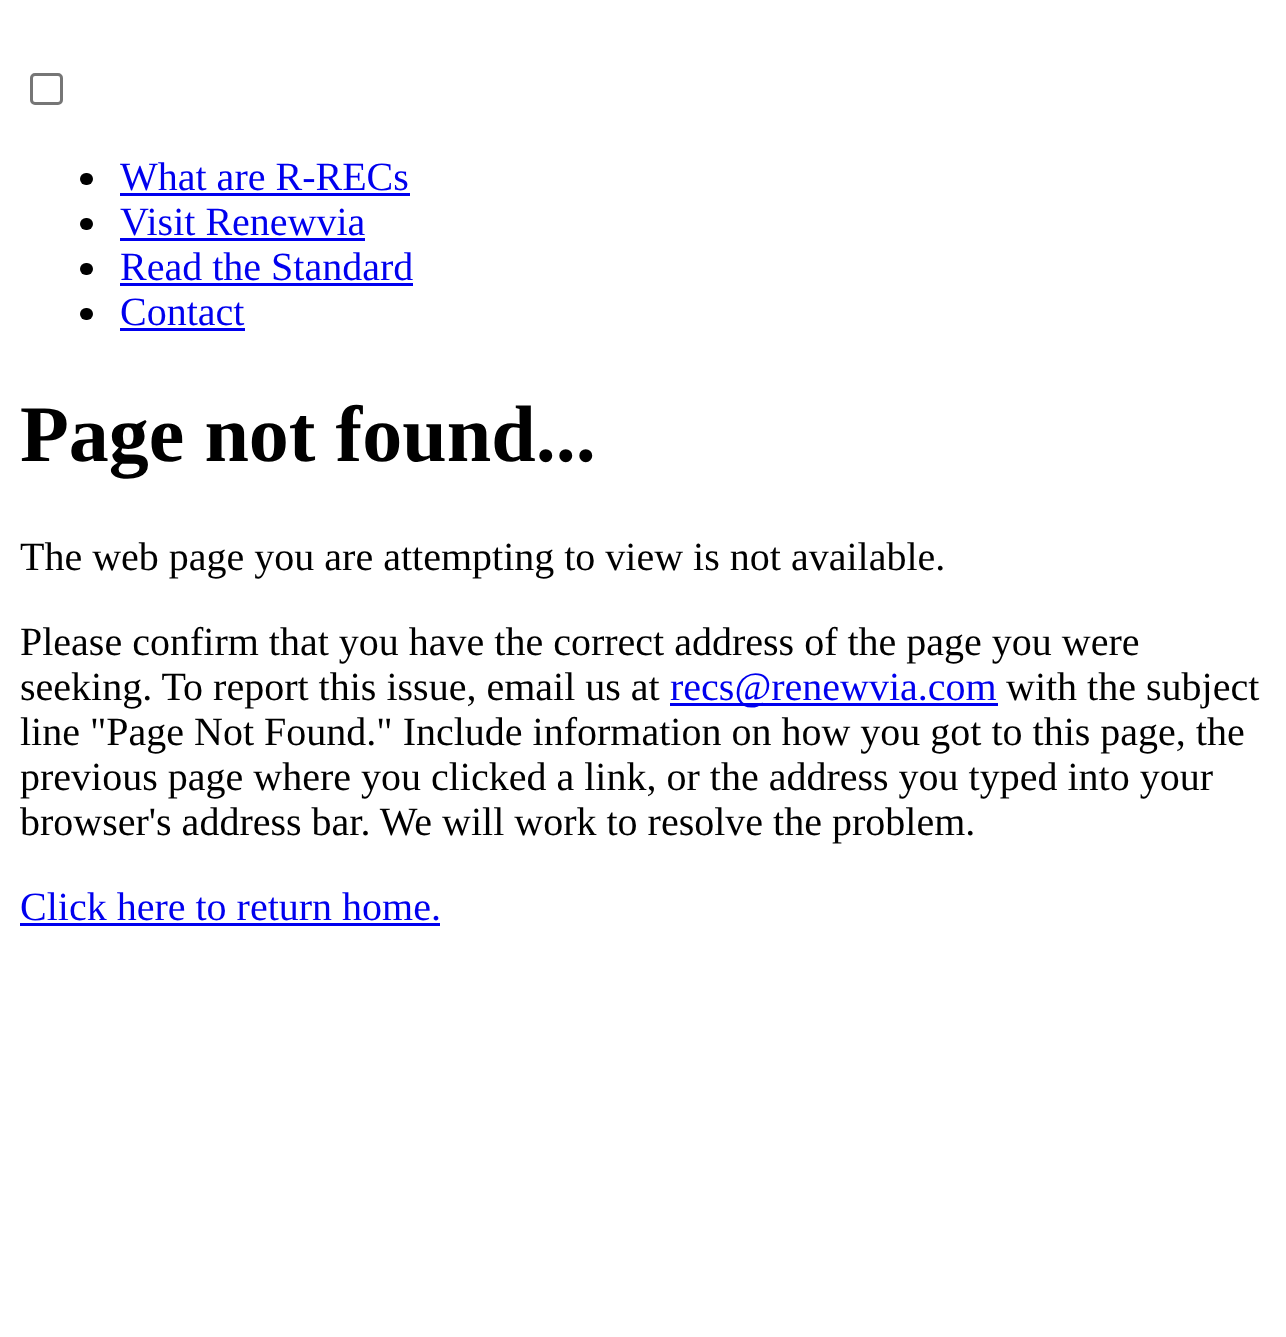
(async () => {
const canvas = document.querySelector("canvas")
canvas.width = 1286
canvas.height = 1337
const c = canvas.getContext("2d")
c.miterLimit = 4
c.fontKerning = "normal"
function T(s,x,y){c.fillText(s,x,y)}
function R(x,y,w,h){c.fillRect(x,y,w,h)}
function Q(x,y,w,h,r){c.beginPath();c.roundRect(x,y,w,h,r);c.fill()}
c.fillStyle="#fff"
R(0,0,1286,1337)
c.beginPath()
c.roundRect(31.5,74.5,30,29,3.5)
c.strokeStyle="#767676"
c.lineWidth=3
c.stroke()
c.fillStyle="#000"
Q(80,173,13,12,6)
c.font="40px Liberation Serif"
c.fillStyle="#00e"
T("What are R-RECs",120,190)
R(120,193,290,3)
c.fillStyle="#000"
Q(80,218,13,12,6)
c.fillStyle="#00e"
T("Visit Renewvia",120,235)
R(120,238,245,3)
c.fillStyle="#000"
Q(80,263,13,12,6)
c.fillStyle="#00e"
T("Read the Standard",120,280)
R(120,283,293,3)
c.fillStyle="#000"
Q(80,308,13,12,6)
c.fillStyle="#00e"
T("Contact",120,325)
R(120,328,125,3)
c.font="bold 80px Liberation Serif"
c.fillStyle="#000"
T("Page not found...",20,461)
c.font="40px Liberation Serif"
T("The web page you are attempting to view is not available.",20,570)
T("Please confirm that you have the correct address of the page you were",20,655)
T("seeking. To report this issue, email us at",20,700)
c.fillStyle="#00e"
R(670,703,328,3)
T("recs@renewvia.com",670,700)
c.fillStyle="#000"
T("with the subject",1006,700)
T("line \"Page Not Found.\" Include information on how you got to this page, the",20,745)
T("previous page where you clicked a link, or the address you typed into your",20,790)
T("browser's address bar. We will work to resolve the problem.",20,835)
c.fillStyle="#00e"
T("Click here to return home.",20,920)
R(20,923,420,3)
})()
